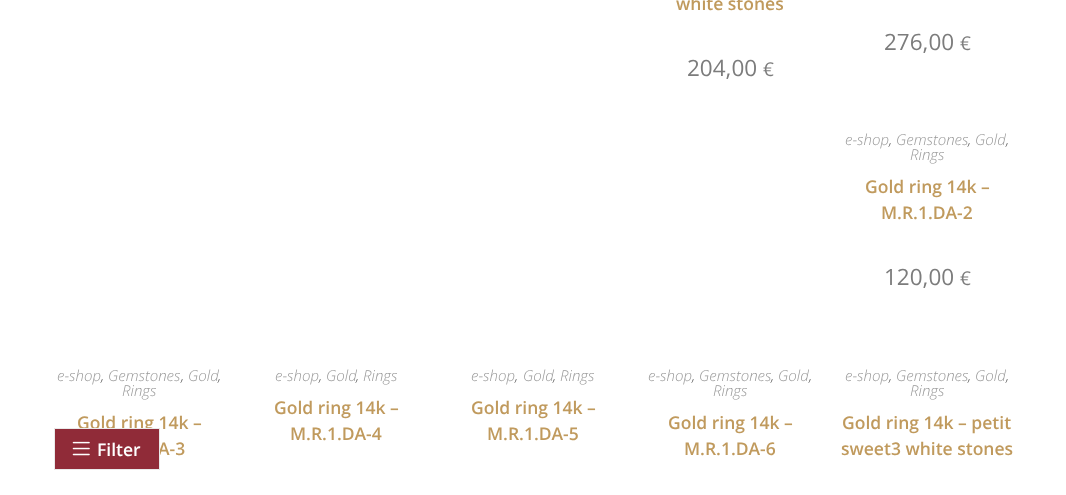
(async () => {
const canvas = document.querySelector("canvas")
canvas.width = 1066
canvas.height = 495
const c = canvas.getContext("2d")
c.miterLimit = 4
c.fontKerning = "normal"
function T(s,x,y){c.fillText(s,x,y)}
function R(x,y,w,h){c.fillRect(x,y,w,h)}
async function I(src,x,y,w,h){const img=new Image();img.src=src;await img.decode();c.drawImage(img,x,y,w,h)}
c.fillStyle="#fff"
R(0,0,1066,495)
c.font="600 17.5px Open Sans"
c.fillStyle="#c09a5d"
T("white stones",676,10)
c.font="22.5px Open Sans"
c.fillStyle="#7c7c7c"
T("204,00",687,76)
c.font="19px Open Sans"
T("€",763,76)
c.font="22.5px Open Sans"
T("276,00",884,50)
c.font="19px Open Sans"
T("€",960,50)
c.font="italic 300 15px Open Sans"
c.fillStyle="#999"
T("e-shop",845,145)
c.fillStyle="#4a4a4a"
T(",",889,145)
c.fillStyle="#999"
T("Gemstones",896,145)
c.fillStyle="#4a4a4a"
T(",",968,145)
c.fillStyle="#999"
T("Gold",975,145)
c.fillStyle="#4a4a4a"
T(",",1006,145)
c.fillStyle="#999"
T("Rings",910,160)
c.font="600 17.5px Open Sans"
c.fillStyle="#c09a5d"
T("Gold ring 14k –",865,193)
T("M.R.1.DA-2",881,219)
c.font="22.5px Open Sans"
c.fillStyle="#7c7c7c"
T("120,00",884,285)
c.font="19px Open Sans"
T("€",960,285)
c.font="italic 300 15px Open Sans"
c.fillStyle="#999"
T("e-shop",57,381)
c.fillStyle="#4a4a4a"
T(",",101,381)
c.fillStyle="#999"
T("Gemstones",108,381)
T("Gold",188,381)
c.fillStyle="#4a4a4a"
T(",",181,381)
T(",",218,381)
c.fillStyle="#999"
T("Rings",122,396)
c.font="600 17.5px Open Sans"
c.fillStyle="#c09a5d"
T("Gold ring 14k –",77,429)
T("A-3",158,455)
c.font="italic 300 15px Open Sans"
c.fillStyle="#999"
T("e-shop",275,381)
c.fillStyle="#4a4a4a"
T(",",319,381)
c.fillStyle="#999"
T("Gold",326,381)
T("Rings",363,381)
c.fillStyle="#4a4a4a"
T(",",356,381)
c.font="600 17.5px Open Sans"
c.fillStyle="#c09a5d"
T("Gold ring 14k –",274,414)
T("M.R.1.DA-4",290,440)
c.font="italic 300 15px Open Sans"
c.fillStyle="#999"
T("e-shop",471,381)
c.fillStyle="#4a4a4a"
T(",",515,381)
c.fillStyle="#999"
T("Gold",523,381)
T("Rings",560,381)
c.fillStyle="#4a4a4a"
T(",",553,381)
c.font="600 17.5px Open Sans"
c.fillStyle="#c09a5d"
T("Gold ring 14k –",471,414)
T("M.R.1.DA-5",487,440)
c.font="italic 300 15px Open Sans"
c.fillStyle="#999"
T("e-shop",648,381)
c.fillStyle="#4a4a4a"
T(",",692,381)
c.fillStyle="#999"
T("Gemstones",699,381)
c.fillStyle="#4a4a4a"
T(",",771,381)
c.fillStyle="#999"
T("Gold",778,381)
c.fillStyle="#4a4a4a"
T(",",809,381)
c.fillStyle="#999"
T("Rings",713,396)
c.font="600 17.5px Open Sans"
c.fillStyle="#c09a5d"
T("Gold ring 14k –",668,429)
T("M.R.1.DA-6",684,455)
c.font="italic 300 15px Open Sans"
c.fillStyle="#999"
T("e-shop",845,381)
c.fillStyle="#4a4a4a"
T(",",889,381)
c.fillStyle="#999"
T("Gemstones",896,381)
c.fillStyle="#4a4a4a"
T(",",968,381)
c.fillStyle="#999"
T("Gold",975,381)
c.fillStyle="#4a4a4a"
T(",",1006,381)
c.fillStyle="#999"
T("Rings",910,396)
c.font="600 17.5px Open Sans"
c.fillStyle="#c09a5d"
T("Gold ring 14k – petit",842,429)
T("sweet3 white stones",841,455)
c.fillStyle="#902b38"
c.beginPath()
c.rect(54.5,428.5,105,41)
c.fill()
c.strokeStyle="#eaeaea"
c.stroke()
await I("1.png",72,441,18,15)
c.fillStyle="#fff"
T("Filter",97,456)
})()
